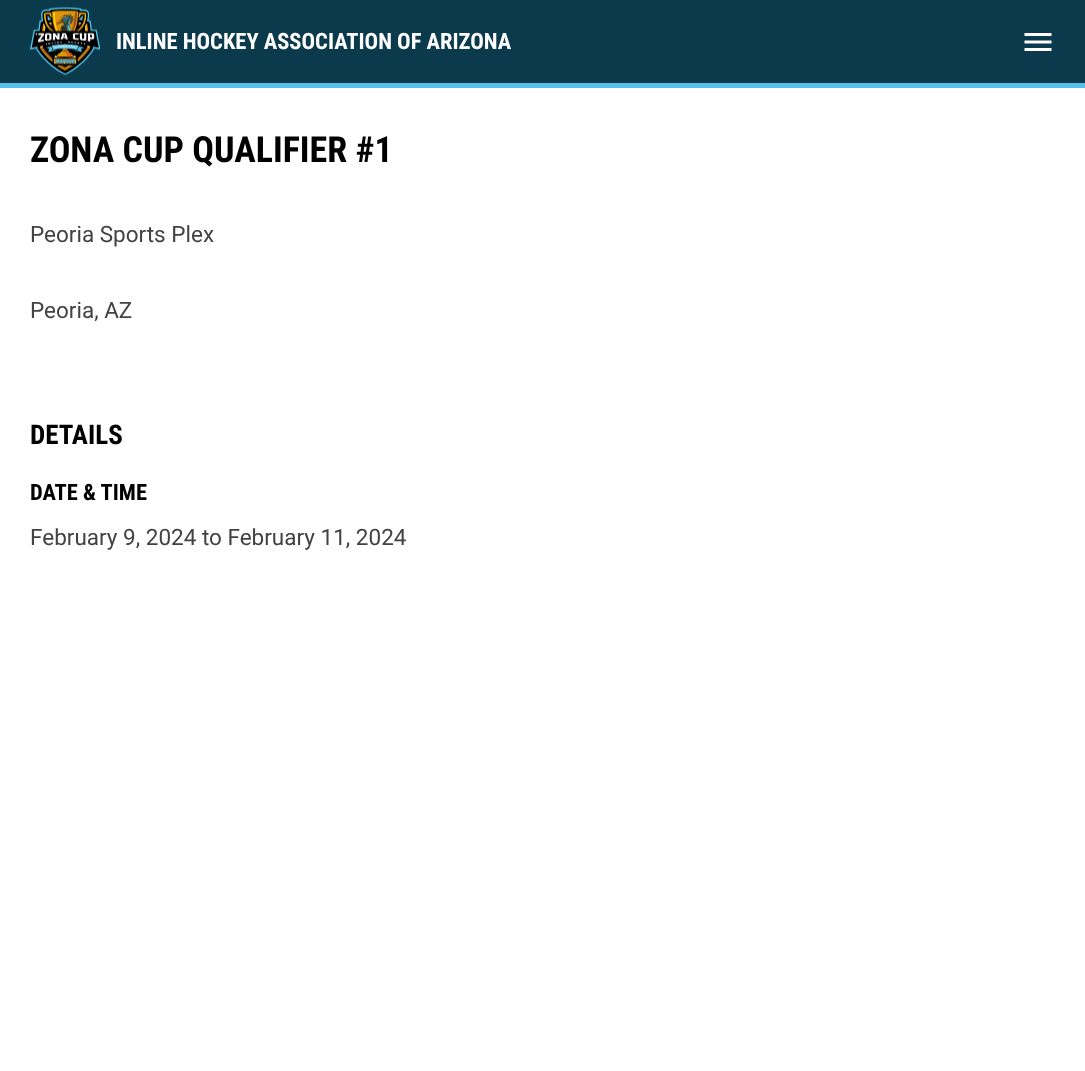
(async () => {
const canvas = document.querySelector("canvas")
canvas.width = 1085
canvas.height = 1071
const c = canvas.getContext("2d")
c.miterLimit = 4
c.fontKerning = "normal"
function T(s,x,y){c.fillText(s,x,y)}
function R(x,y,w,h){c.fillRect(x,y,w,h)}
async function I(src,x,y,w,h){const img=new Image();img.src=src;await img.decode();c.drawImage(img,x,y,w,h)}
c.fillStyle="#fff"
R(0,0,1085,1071)
c.fillStyle="#0b3a4c"
R(0,0,1085,83)
await I("1.png",30,7,71,69)
c.font="bold 22.5px Roboto Condensed"
c.fillStyle="#fff"
T("INLINE HOCKEY ASSOCIATION OF ARIZONA",116,49)
await I("2.png",1024,33,28,18)
c.fillStyle="#54c2e7"
R(0,83,1085,5)
c.font="bold 36px Roboto Condensed"
c.fillStyle="#000"
T("ZONA CUP QUALIFIER #1",30,162)
c.font="22.5px Roboto"
c.fillStyle="#424242"
T("Peoria Sports Plex",30,242)
T("Peoria, AZ",30,318)
c.font="bold 27px Roboto Condensed"
c.fillStyle="#000"
T("DETAILS",30,444)
c.font="bold 22.5px Roboto Condensed"
T("DATE & TIME",30,500)
c.font="22.5px Roboto"
c.fillStyle="#424242"
T("February 9, 2024 to February 11, 2024",30,545)
})()
